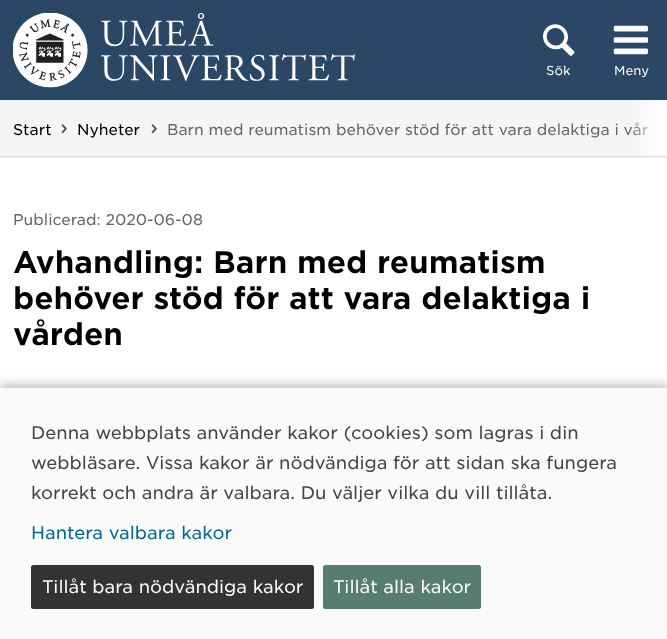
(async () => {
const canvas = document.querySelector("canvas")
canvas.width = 667
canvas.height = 639
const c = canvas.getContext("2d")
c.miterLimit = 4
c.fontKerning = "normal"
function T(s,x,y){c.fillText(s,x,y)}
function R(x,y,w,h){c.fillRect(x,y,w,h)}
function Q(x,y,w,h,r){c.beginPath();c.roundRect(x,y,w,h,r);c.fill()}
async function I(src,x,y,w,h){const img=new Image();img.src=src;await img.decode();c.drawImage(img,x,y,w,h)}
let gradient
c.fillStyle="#fff"
R(0,0,667,639)
c.fillStyle="#2a4765"
R(0,0,667,100)
await I("1.png",13,13,342,75)
await I("2.png",543,24,32,32)
c.font="300 12.5px 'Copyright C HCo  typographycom'"
c.fillStyle="#fafafa"
T("Sök",546,75)
await I("3.png",613,25,35,30)
T("Meny",614,75)
c.fillStyle="#f5f5f5"
R(0,100,667,58)
c.fillStyle="#ddd"
R(0,156,667,1)
c.font="300 15px 'Copyright C HCo  typographycom'"
c.fillStyle="#000"
T("Start",13,135)
await I("4.png",61,124,6,9)
T("Nyheter",77,135)
await I("4.png",151,124,6,9)
c.fillStyle="#666"
T("Barn med reumatism behöver stöd för att vara delaktiga i vår",167,135)
gradient = c.createLinearGradient(630,128,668,128)
gradient.addColorStop(0,"#ffffff00")
gradient.addColorStop(.6,"#ffffffcc")
gradient.addColorStop(1,"#fff")
c.fillStyle = gradient
R(631,100,36,56)
c.fillStyle="#666"
T("Publicerad: 2020-06-08",13,225)
c.font="30px 'Copyright C HCo  typographycom'"
c.fillStyle="#000"
T("Avhandling: Barn med reumatism",13,273)
T("behöver stöd för att vara delaktiga i",13,309)
T("vården",13,345)
c.fillStyle="#00000033"
c.filter="blur(4px)"
c.beginPath()
c.rect(0,383,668,252)
c.fill()
c.filter="none"
c.fillStyle="#fafafa"
R(0,388,667,251)
c.font="300 17.5px 'Copyright C HCo  typographycom'"
c.fillStyle="#444"
T("Denna webbplats använder kakor (cookies) som lagras i din",31,439)
T("webbläsare. Vissa kakor är nödvändiga för att sidan ska fungera",31,469)
T("korrekt och andra är valbara. Du väljer vilka du vill tillåta.",31,499)
c.fillStyle="#069"
T("Hantera valbara kakor",31,539)
c.fillStyle="#333"
Q(31,565,283,44,2.5)
c.fillStyle="#fafafa"
T("Tillåt bara nödvändiga kakor",42,593)
c.fillStyle="#567d70"
Q(323,565,158,44,2.5)
c.fillStyle="#fafafa"
T("Tillåt alla kakor",333,593)
})()
